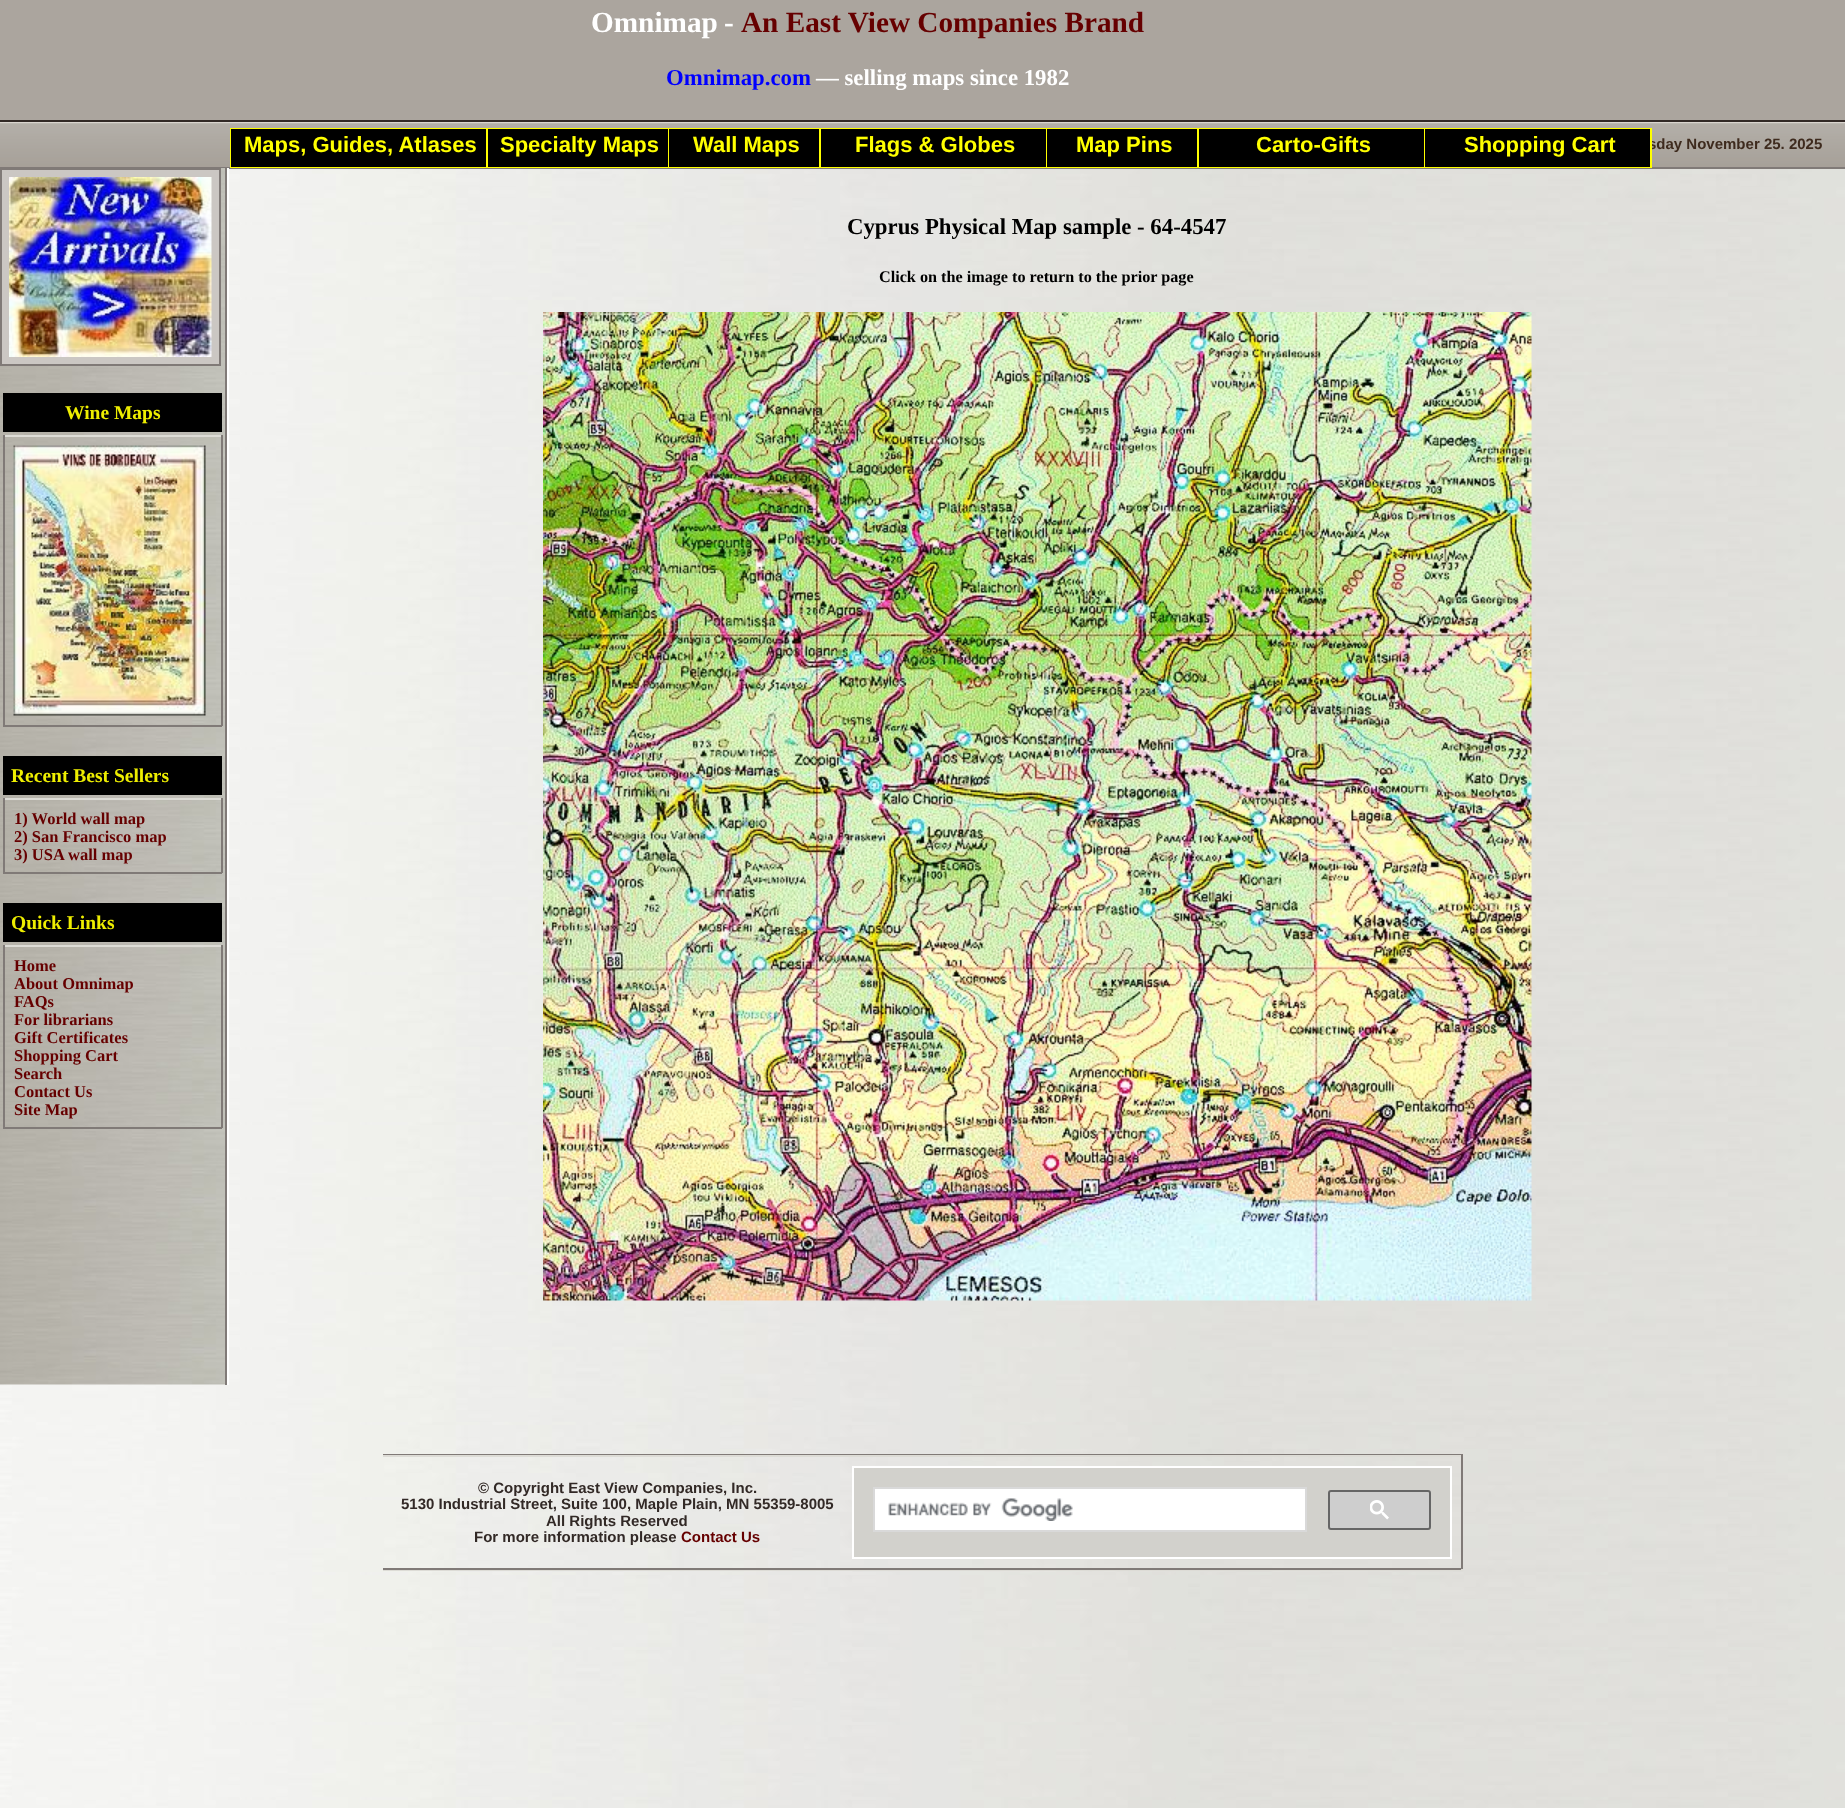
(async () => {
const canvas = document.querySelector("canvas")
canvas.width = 1845
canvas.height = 1808
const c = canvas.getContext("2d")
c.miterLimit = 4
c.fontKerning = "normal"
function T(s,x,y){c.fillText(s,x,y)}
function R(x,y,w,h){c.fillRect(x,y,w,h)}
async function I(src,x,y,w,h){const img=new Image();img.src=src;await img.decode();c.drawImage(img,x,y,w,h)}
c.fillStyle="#fff"
R(0,0,1845,1808)
await I("1.png",0,169,1845,1639)
c.fillStyle="#aba59e"
R(0,0,1845,120)
c.wordSpacing="-1px"
c.font="bold 29.25px Liberation Serif"
c.fillStyle="#fff"
T("Omnimap -",591,32)
c.wordSpacing="0px"
c.fillStyle="#600"
T("An East View Companies Brand",741,32)
c.font="bold 22.8px Liberation Serif"
c.fillStyle="#00f"
T("Omnimap.com",666,85)
c.fillStyle="#fff"
T("— selling maps since 1982",816,85)
await I("2.png",0,122,1845,45)
c.fillStyle="#322926"
R(0,120,1845,2)
c.fillStyle="#807a77"
R(0,167,1845,2)
await I("3.png",0,168,225,1217)
R(225,168,2,1217)
c.font="bold 15px Liberation Sans"
c.fillStyle="#3e2b1e"
T("sday November 25. 2025",1648,149)
c.fillStyle="#cbc7c3"
c.beginPath()
c.rect(1,169,219,196)
c.fill()
c.strokeStyle="#807a77"
c.lineWidth=2
c.stroke()
await I("4.png",9,177,203,180)
c.fillStyle="#000"
R(3,393,219,39)
c.font="bold 19.5px Liberation Serif"
c.fillStyle="#ee0"
T("Wine Maps",65,419)
c.fillStyle="#dddcd6"
R(3,435,219,2)
c.fillStyle="#807a77"
R(221,435,2,291)
R(3,725,219,2)
R(3,435,2,291)
await I("5.png",13,445,193,271)
c.fillStyle="#000"
R(3,756,219,39)
c.fillStyle="#ee0"
T("Recent Best Sellers",11,782)
c.fillStyle="#dddcd6"
R(3,798,219,2)
c.fillStyle="#807a77"
R(221,798,2,75)
R(3,872,219,2)
R(3,798,2,75)
c.font="bold 16.5px Liberation Serif"
c.fillStyle="#600"
T("1) World wall map",14,824)
T("2) San Francisco map",14,842)
T("3) USA wall map",14,860)
c.fillStyle="#000"
R(3,903,219,39)
c.font="bold 19.5px Liberation Serif"
c.fillStyle="#ee0"
T("Quick Links",11,929)
c.fillStyle="#dddcd6"
R(3,945,219,2)
c.fillStyle="#807a77"
R(221,945,2,183)
R(3,1127,219,2)
R(3,945,2,183)
c.font="bold 16.5px Liberation Serif"
c.fillStyle="#600"
T("Home",14,971)
T("About Omnimap",14,989)
T("FAQs",14,1007)
T("For librarians",14,1025)
T("Gift Certificates",14,1043)
T("Shopping Cart",14,1061)
T("Search",14,1079)
T("Contact Us",14,1097)
T("Site Map",14,1115)
c.fillStyle="#fff"
R(227,168,2,1217)
c.font="bold 22.8px Liberation Serif"
c.fillStyle="#000"
T("Cyprus Physical Map sample - 64-4547",847,234)
c.font="bold 16.2px Liberation Serif"
T("Click on the image to return to the prior page",879,282)
await I("6.png",543,312,989,989)
c.fillStyle="#ff0"
R(230,128,1422,40)
c.fillStyle="#000"
R(231,129,255,38)
c.font="bold 22px Liberation Sans"
c.fillStyle="#ff0"
T("Maps, Guides, Atlases",244,152)
c.fillStyle="#000"
R(488,129,180,38)
c.fillStyle="#ff0"
T("Specialty Maps",500,152)
c.fillStyle="#000"
R(669,129,150,38)
c.fillStyle="#ff0"
T("Wall Maps",693,152)
c.fillStyle="#000"
R(821,129,225,38)
c.fillStyle="#ff0"
T("Flags & Globes",855,152)
c.fillStyle="#000"
R(1047,129,150,38)
c.fillStyle="#ff0"
T("Map Pins",1076,152)
c.fillStyle="#000"
R(1199,129,225,38)
c.fillStyle="#ff0"
T("Carto-Gifts",1256,152)
c.fillStyle="#000"
R(1425,129,225,38)
c.fillStyle="#ff0"
T("Shopping Cart",1464,152)
c.fillStyle="#807a77"
R(383,1454,1080,1)
R(1461,1454,2,117)
c.fillStyle="#dddcd6"
R(383,1569,1080,2)
R(383,1455,1078,2)
c.fillStyle="#807a77"
R(383,1568,1078,2)
c.font="bold 15px Liberation Sans"
c.fillStyle="#322926"
T("© Copyright East View Companies, Inc.",478,1493)
T("5130 Industrial Street, Suite 100, Maple Plain, MN 55359-8005",401,1509)
T("All Rights Reserved",546,1526)
T("For more information please",474,1542)
c.fillStyle="#600"
T("Contact Us",681,1542)
c.fillStyle="#d2d1cc"
c.beginPath()
c.rect(853,1467,598,91)
c.fill()
c.strokeStyle="#fff"
c.stroke()
c.fillStyle="#fff"
c.beginPath()
c.rect(874,1488,432,43)
c.fill()
c.strokeStyle="#d9d9d9"
c.stroke()
await I("7.png",888,1498,185,23)
c.fillStyle="#cecece"
c.beginPath()
c.roundRect(1329,1491,101,38,2)
c.fill()
c.strokeStyle="#666"
c.stroke()
await I("8.png",1370,1500,19,20)
})()
